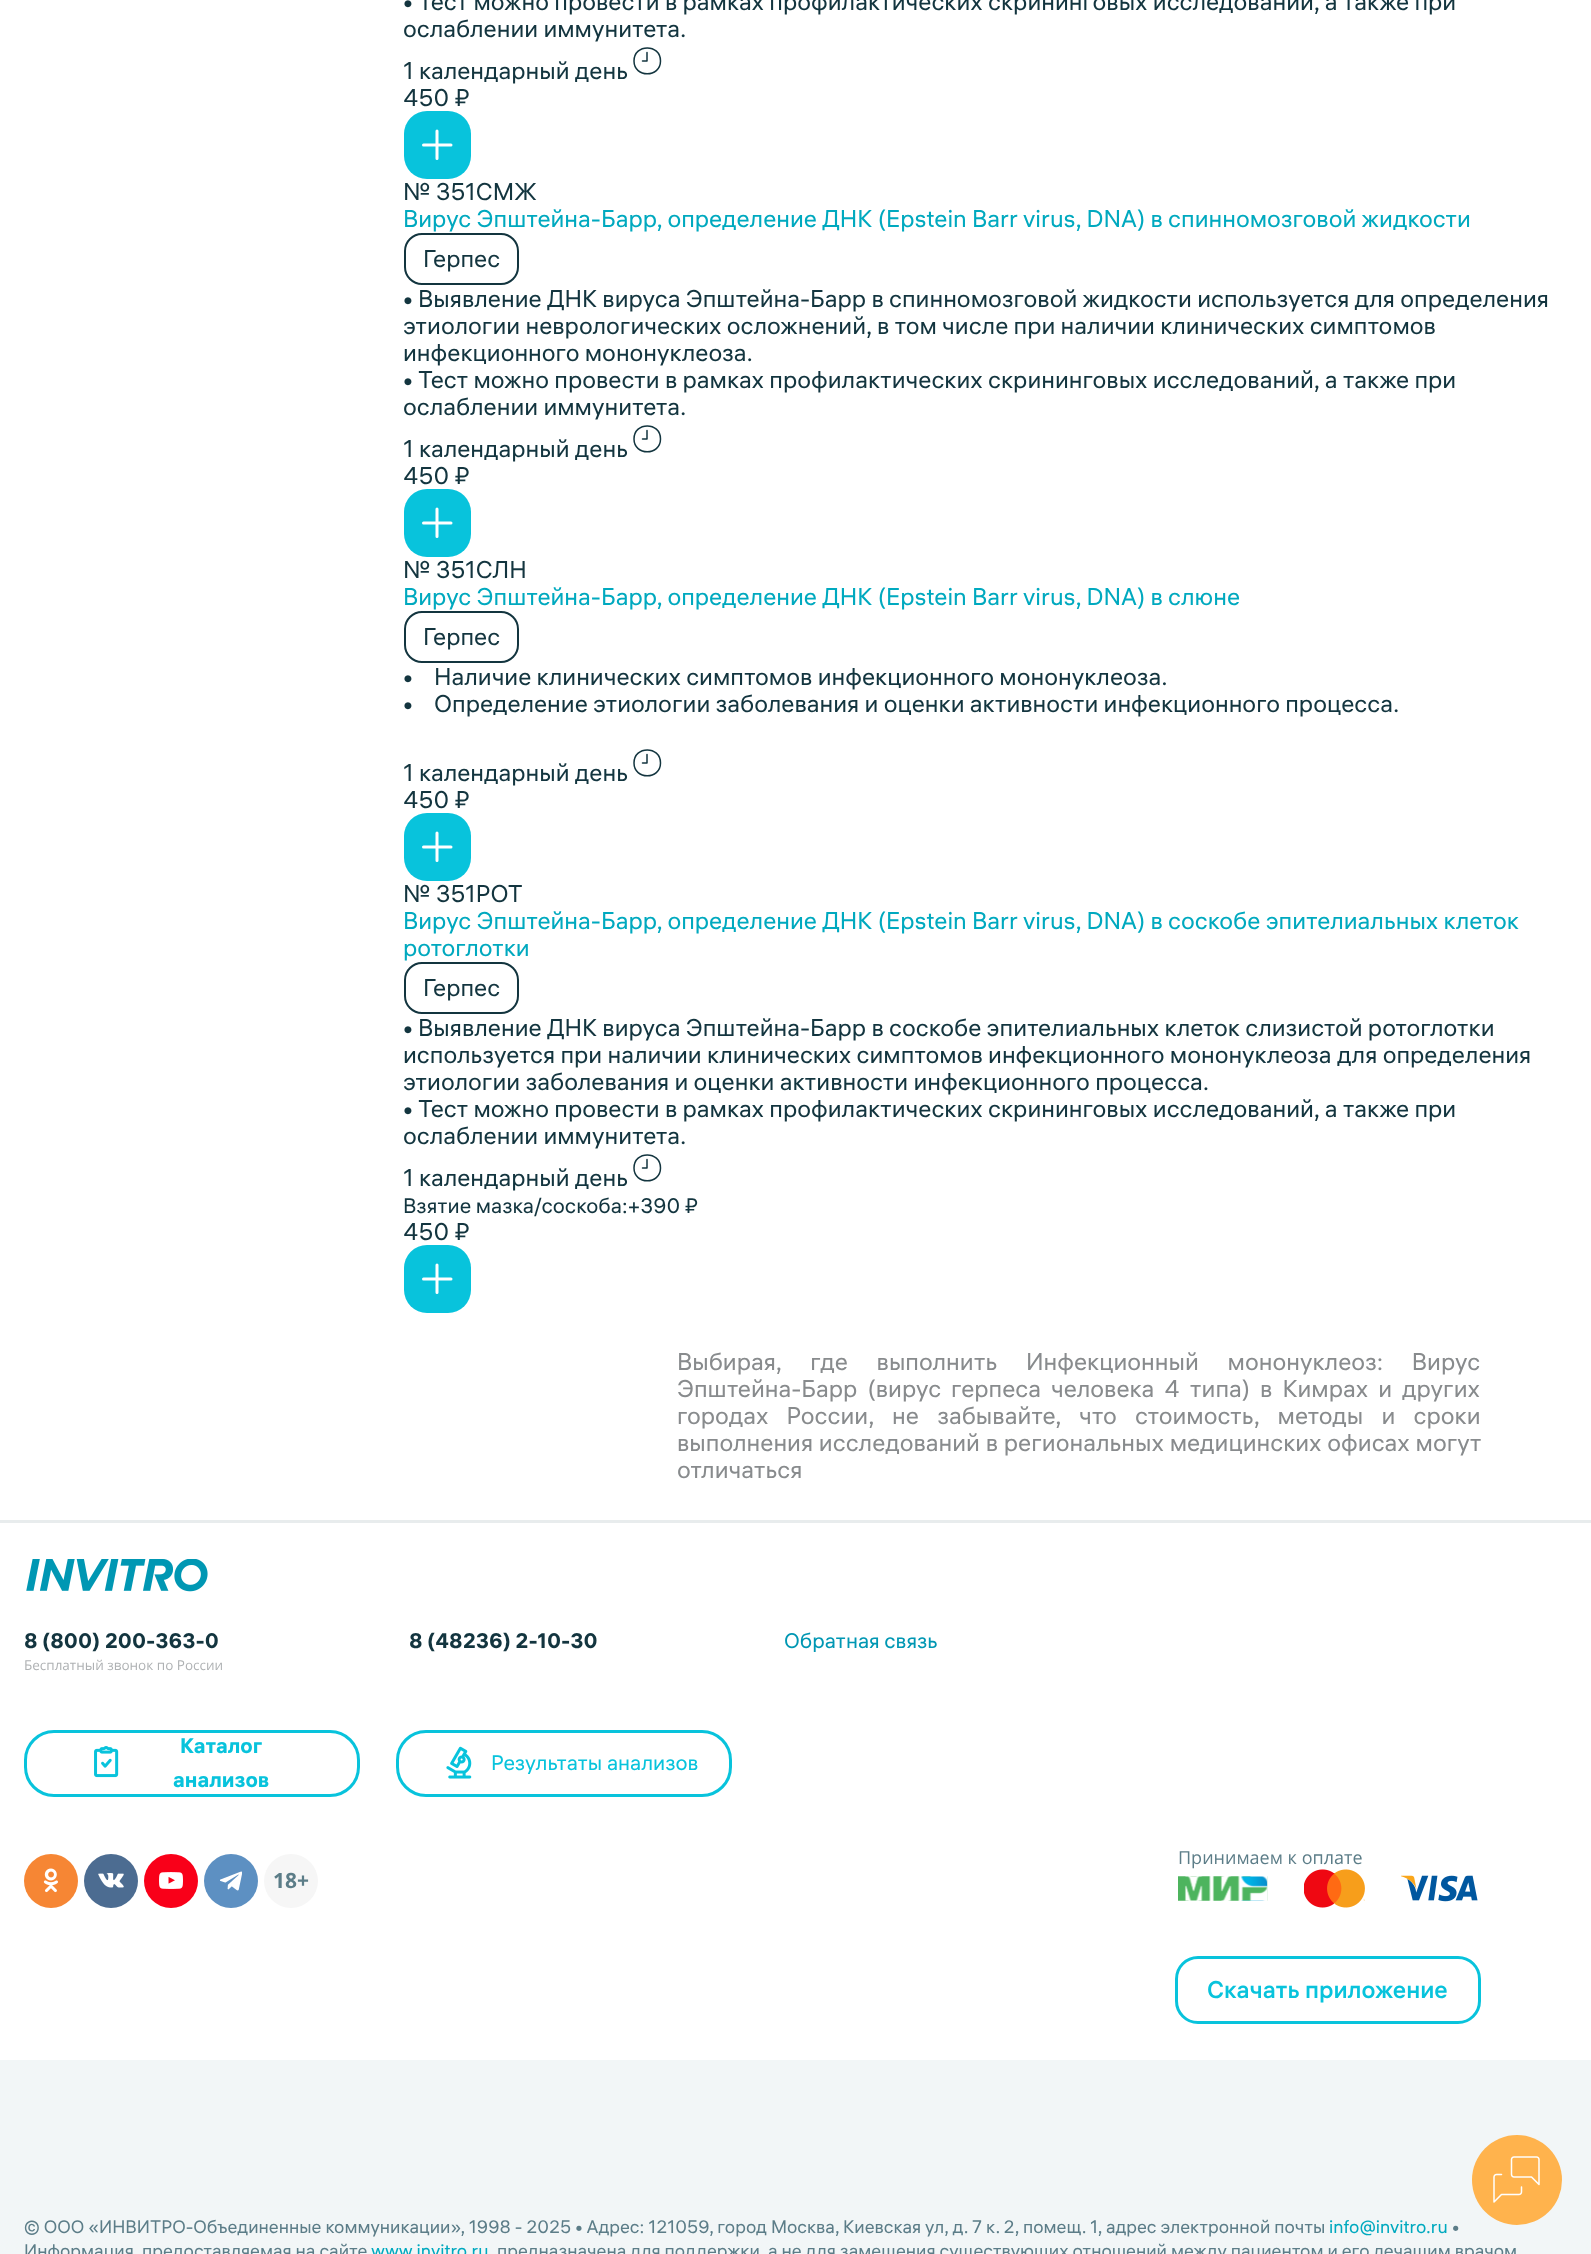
(async () => {
const canvas = document.querySelector("canvas")
canvas.width = 1591
canvas.height = 2254
const c = canvas.getContext("2d")
c.miterLimit = 4
c.fontKerning = "normal"
function T(s,x,y){c.fillText(s,x,y)}
function R(x,y,w,h){c.fillRect(x,y,w,h)}
function Q(x,y,w,h,r){c.beginPath();c.roundRect(x,y,w,h,r);c.fill()}
async function I(src,x,y,w,h){const img=new Image();img.src=src;await img.decode();c.drawImage(img,x,y,w,h)}
let path
c.fillStyle="#fff"
R(0,0,1591,2254)
c.fillStyle="#e8eced"
R(0,1520,1591,3)
c.font="24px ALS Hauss"
c.fillStyle="#13353f"
T("• Тест можно провести в рамках профилактических скрининговых исследований, а также при",403,10)
T("ослаблении иммунитета.",403,37)
T("1 календарный день",403,79)
path = new Path2D("M647 52.5v8.5h-4.5m18 0c0 17-26.5 17-26.5 0c0-17.5 26.5-17.5 26.5 0z")
c.strokeStyle="#13353f"
c.lineWidth=1.5
c.lineCap="round"
c.lineJoin="round"
c.stroke(path)
T("450 ₽",403,106)
c.fillStyle="#08c3dc"
Q(404,111,67,68,23)
path = new Path2D("M451 145h-27.5m13.5-14v27.5")
c.strokeStyle="#fff"
c.lineWidth=3
c.stroke(path)
c.fillStyle="#13353f"
T("№ 351СМЖ",403,200)
c.fillStyle="#00a9bf"
T("Вирус Эпштейна-Барр, определение ДНК (Epstein Barr virus, DNA) в спинномозговой жидкости",403,227)
c.beginPath()
c.roundRect(405,234,113,50,17)
c.strokeStyle="#13353f"
c.lineWidth=2
c.lineJoin="miter"
c.stroke()
c.fillStyle="#13353f"
T("Герпес",423,267)
T("• Выявление ДНК вируса Эпштейна-Барр в спинномозговой жидкости используется для определения",403,307)
T("этиологии неврологических осложнений, в том числе при наличии клинических симптомов",403,334)
T("инфекционного мононуклеоза.",403,361)
T("• Тест можно провести в рамках профилактических скрининговых исследований, а также при",403,388)
T("ослаблении иммунитета.",403,415)
T("1 календарный день",403,457)
path = new Path2D("M647 430.5v8.5h-4.5m18 0c0 17-26.5 17-26.5 0c0-17.5 26.5-17.5 26.5 0z")
c.lineWidth=1.5
c.lineJoin="round"
c.stroke(path)
T("450 ₽",403,484)
c.fillStyle="#08c3dc"
Q(404,489,67,68,23)
path = new Path2D("M451 523h-27.5m13.5-14v27.5")
c.strokeStyle="#fff"
c.lineWidth=3
c.stroke(path)
c.fillStyle="#13353f"
T("№ 351СЛН",403,578)
c.fillStyle="#00a9bf"
T("Вирус Эпштейна-Барр, определение ДНК (Epstein Barr virus, DNA) в слюне",403,605)
c.beginPath()
c.roundRect(405,612,113,50,17)
c.strokeStyle="#13353f"
c.lineWidth=2
c.lineJoin="miter"
c.stroke()
c.fillStyle="#13353f"
T("Герпес",423,645)
T("•    Наличие клинических симптомов инфекционного мононуклеоза.",403,685)
T("•    Определение этиологии заболевания и оценки активности инфекционного процесса.",403,712)
T("1 календарный день",403,781)
path = new Path2D("M647 754.5v8.5h-4.5m18 0c0 17-26.5 17-26.5 0c0-17.5 26.5-17.5 26.5 0z")
c.lineWidth=1.5
c.lineJoin="round"
c.stroke(path)
T("450 ₽",403,808)
c.fillStyle="#08c3dc"
Q(404,813,67,68,23)
path = new Path2D("M451 847h-27.5m13.5-14v27.5")
c.strokeStyle="#fff"
c.lineWidth=3
c.stroke(path)
c.fillStyle="#13353f"
T("№ 351РОТ",403,902)
c.fillStyle="#00a9bf"
T("Вирус Эпштейна-Барр, определение ДНК (Epstein Barr virus, DNA) в соскобе эпителиальных клеток",403,929)
T("ротоглотки",403,956)
c.beginPath()
c.roundRect(405,963,113,50,17)
c.strokeStyle="#13353f"
c.lineWidth=2
c.lineJoin="miter"
c.stroke()
c.fillStyle="#13353f"
T("Герпес",423,996)
T("• Выявление ДНК вируса Эпштейна-Барр в соскобе эпителиальных клеток слизистой ротоглотки",403,1036)
T("используется при наличии клинических симптомов инфекционного мононуклеоза для определения",403,1063)
T("этиологии заболевания и оценки активности инфекционного процесса.",403,1090)
T("• Тест можно провести в рамках профилактических скрининговых исследований, а также при",403,1117)
T("ослаблении иммунитета.",403,1144)
T("1 календарный день",403,1186)
path = new Path2D("M647 1159.5v8.5h-4.5m18 0c0 17-26.5 17-26.5 0c0-17.5 26.5-17.5 26.5 0z")
c.lineWidth=1.5
c.lineJoin="round"
c.stroke(path)
c.font="21px ALS Hauss"
T("Взятие мазка/соскоба:+390 ₽",403,1213)
c.font="24px ALS Hauss"
T("450 ₽",403,1240)
c.fillStyle="#08c3dc"
Q(404,1245,67,68,23)
path = new Path2D("M451 1279h-27.5m13.5-14v27.5")
c.strokeStyle="#fff"
c.lineWidth=3
c.stroke(path)
c.wordSpacing="23.5px"
c.fillStyle="#888b8d"
T("Выбирая, где выполнить Инфекционный мононуклеоз: Вирус",677,1370)
c.wordSpacing="4.75px"
T("Эпштейна-Барр (вирус герпеса человека 4 типа) в Кимрах и других",677,1397)
c.wordSpacing="13px"
T("городах России, не забывайте, что стоимость, методы и сроки",677,1424)
c.wordSpacing="0.5px"
T("выполнения исследований в региональных медицинских офисах могут",677,1451)
c.wordSpacing="0px"
T("отличаться",677,1478)
await I("1.png",26,1559,182,33)
c.font="bold 21px ALS Hauss"
c.fillStyle="#13353f"
T("8 (800) 200-363-0",24,1648)
c.font="13.5px Open Sans"
c.fillStyle="#aeb1b3"
T("Бесплатный звонок по России",24,1670)
c.font="bold 21px ALS Hauss"
c.fillStyle="#13353f"
T("8 (48236) 2-10-30",409,1648)
c.font="21px ALS Hauss"
c.fillStyle="#0097b3"
T("Обратная связь",784,1648)
c.beginPath()
c.roundRect(25.5,1731.5,333,64,28.5)
c.strokeStyle="#08c3dc"
c.lineJoin="miter"
c.stroke()
await I("2.png",94,1746,25,32)
c.font="bold 21px ALS Hauss"
c.fillStyle="#08c3dc"
T("Каталог",180,1753)
T("анализов",173,1787)
c.beginPath()
c.roundRect(397.5,1731.5,333,64,28.5)
c.stroke()
await I("3.png",446,1746,26,33)
c.font="21px ALS Hauss"
T("Результаты анализов",491,1770)
c.font="18px Open Sans"
c.fillStyle="#5c7d88"
T("Принимаем к оплате",1178,1864)
await I("4.png",1178,1876,90,25)
await I("5.png",1304,1869,61,39)
await I("6.png",1401,1875,77,27)
c.fillStyle="#f68634"
c.beginPath()
c.arc(51,1881,27,0,7)
c.fill()
await I("7.png",43,1868,15,25)
c.fillStyle="#4c6c91"
c.beginPath()
c.arc(111,1881,27,0,7)
c.fill()
await I("8.png",98,1873,26,15)
c.fillStyle="#f90019"
c.beginPath()
c.arc(171,1881,27,0,7)
c.fill()
await I("9.png",159,1872,24,17)
c.fillStyle="#5d90c2"
c.beginPath()
c.arc(231,1881,27,0,7)
c.fill()
await I("10.png",220,1871,22,20)
c.fillStyle="#f6f6f6"
c.beginPath()
c.arc(291,1881,27,0,7)
c.fill()
c.font="bold 21px Open Sans"
c.fillStyle="#5c7d88"
T("18+",273,1888)
c.beginPath()
c.roundRect(1176.5,1957.5,303,65,21.5)
c.stroke()
c.font="500 24px ALS Hauss"
c.fillStyle="#08c3dc"
T("Скачать приложение",1207,1998)
c.fillStyle="#f2f6f7"
R(0,2060,1591,194)
c.font="18px ALS Hauss"
c.fillStyle="#5c7d88"
T("© ООО «ИНВИТРО-Объединенные коммуникации», 1998 - 2025 • Адрес: 121059, город Москва, Киевская ул, д. 7 к. 2, помещ. 1, адрес электронной почты",24,2233)
c.fillStyle="#00a9bf"
T("info@invitro.ru",1329,2233)
c.fillStyle="#5c7d88"
T("•",1452,2233)
T("Информация, предоставляемая на сайте",24,2257)
c.fillStyle="#00a9bf"
T("www.invitro.ru",371,2257)
c.fillStyle="#5c7d88"
T("предназначена для поддержки, а не для замещения существующих отношений между пациентом и его лечащим врачом",497,2257)
c.fillStyle="#ffb34d"
c.beginPath()
c.arc(1517,2180,45,0,7)
c.fill()
await I("11.png",1493,2156,47,47)
})()
